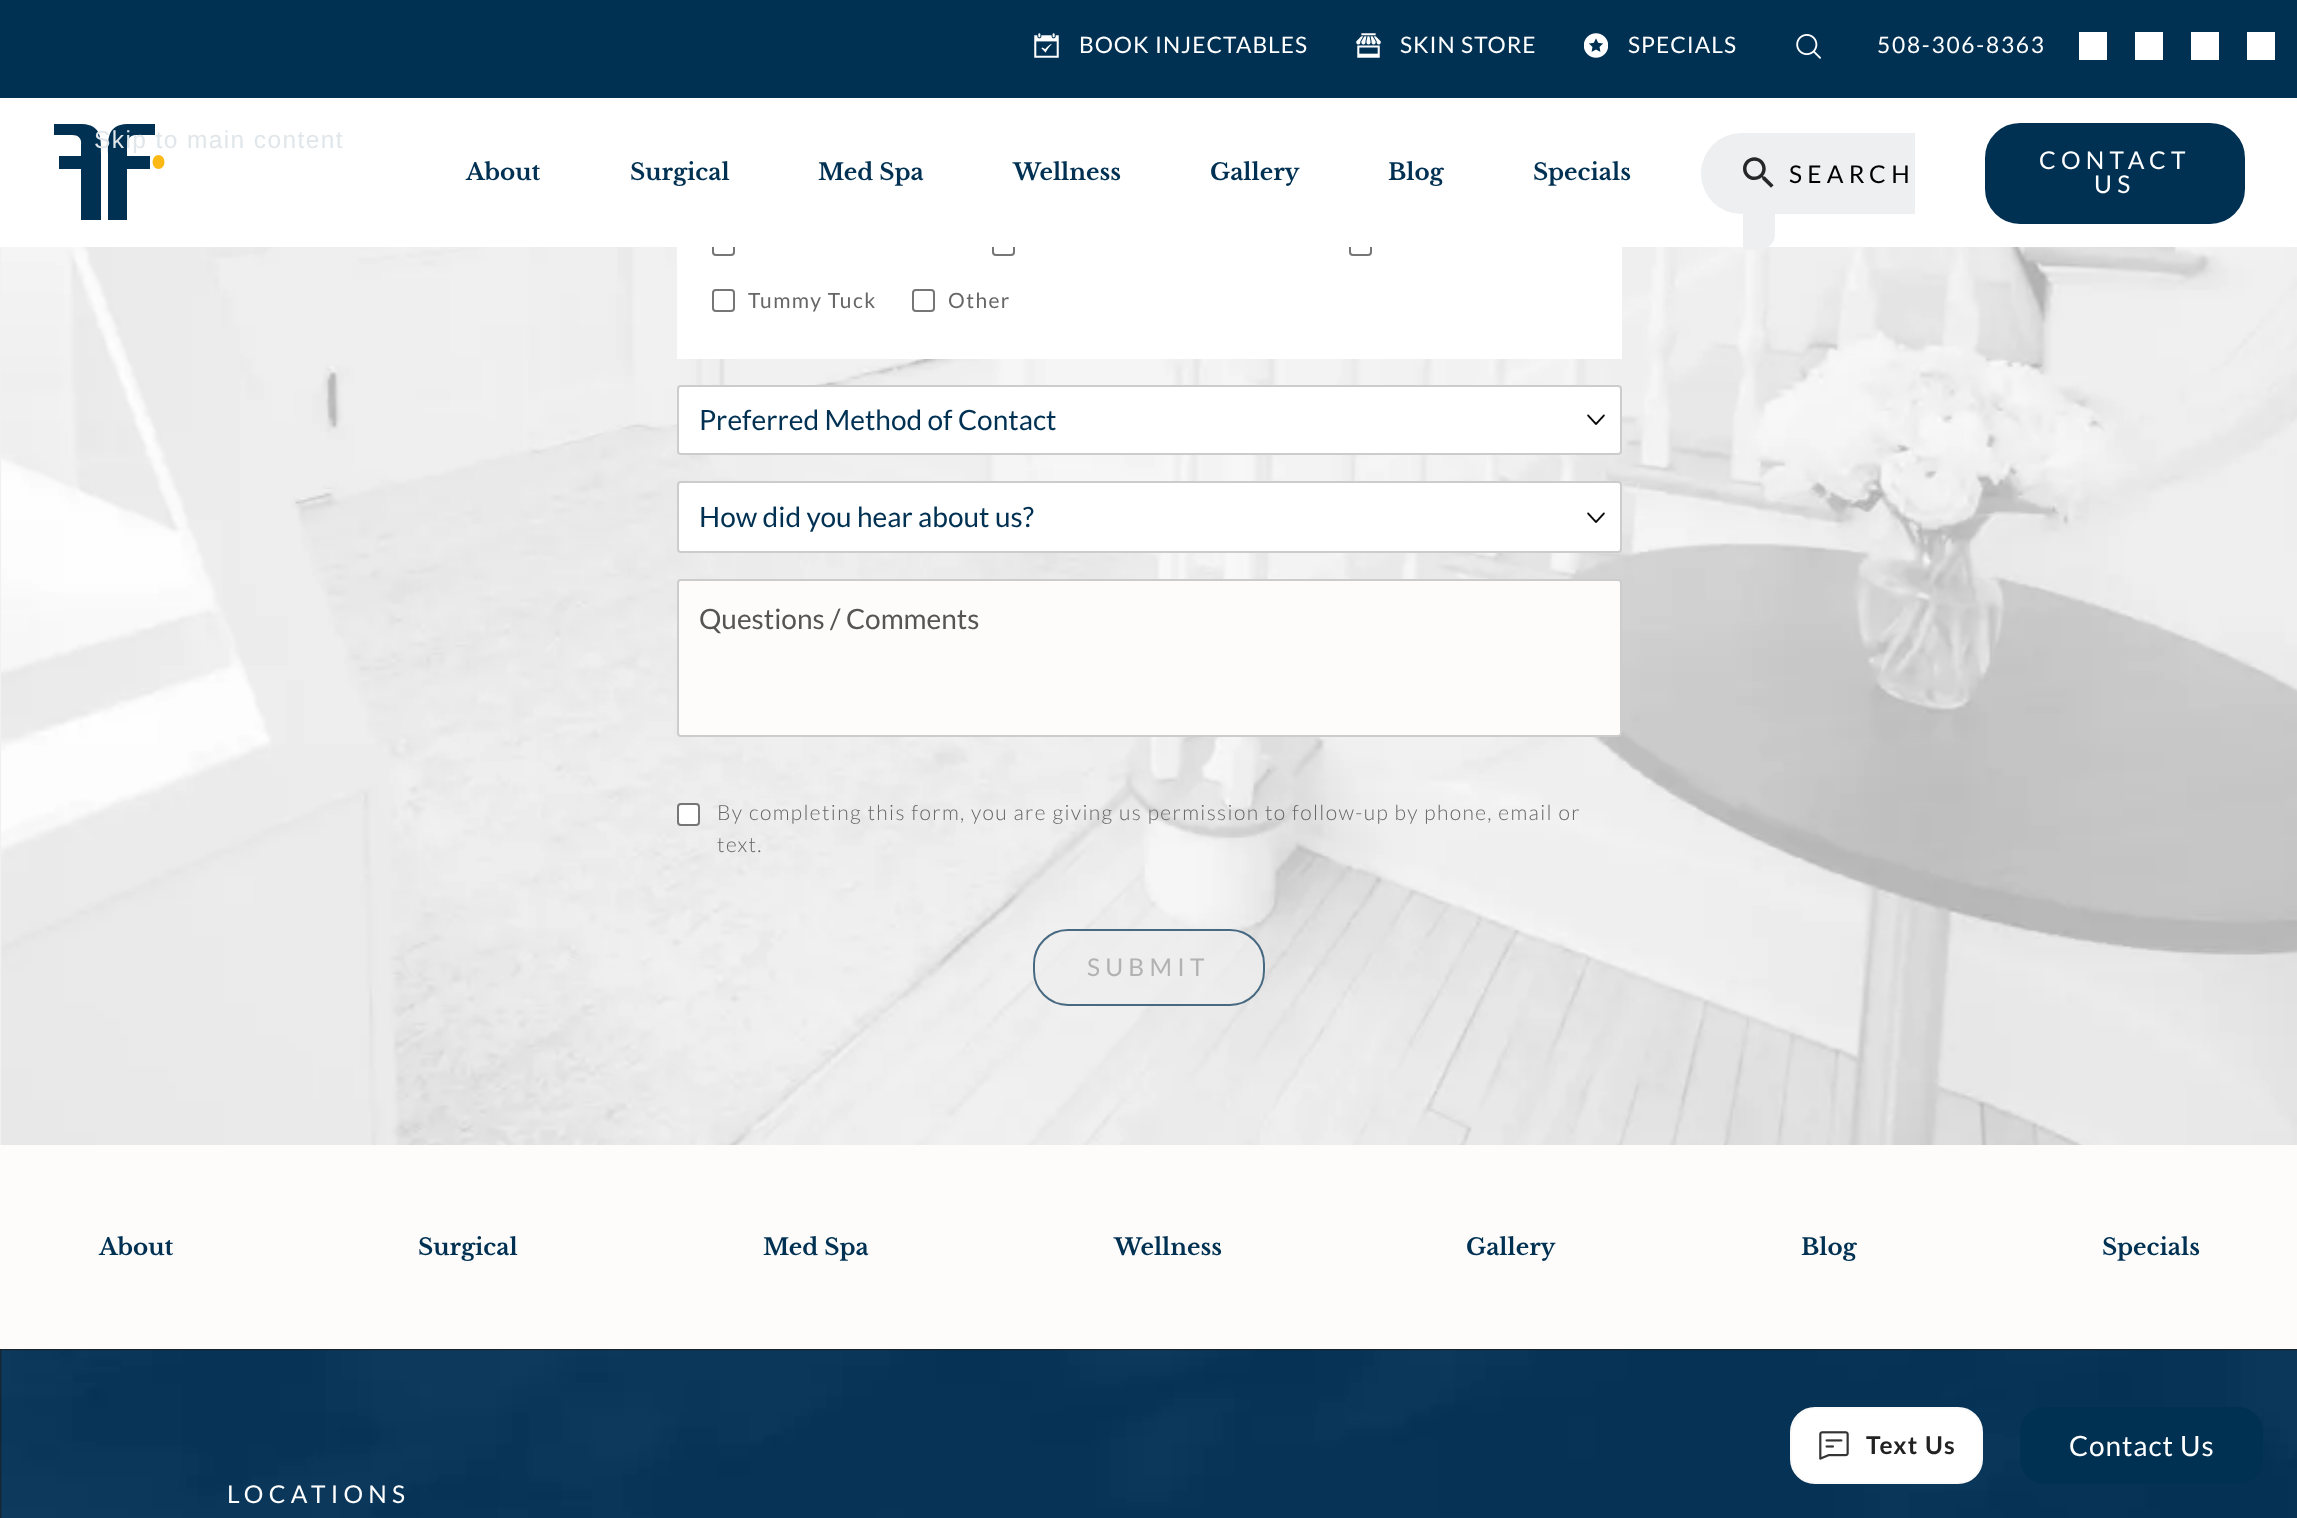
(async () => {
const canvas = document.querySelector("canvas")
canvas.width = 2297
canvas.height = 1518
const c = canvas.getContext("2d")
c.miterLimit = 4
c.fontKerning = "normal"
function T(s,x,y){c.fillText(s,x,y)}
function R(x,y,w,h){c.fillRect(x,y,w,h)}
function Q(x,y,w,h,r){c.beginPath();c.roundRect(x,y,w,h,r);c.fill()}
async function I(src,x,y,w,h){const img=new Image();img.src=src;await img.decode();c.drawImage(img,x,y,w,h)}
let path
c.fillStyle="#fdfcfa"
R(0,0,2297,1518)
c.fillStyle="#f1f1f1"
R(0,247,2,898)
await I("6.png",1,247,2296,898)
c.fillStyle="#fff"
R(677,247,945,112)
c.beginPath()
c.roundRect(713,234,21,21,3)
c.strokeStyle="#767676"
c.lineWidth=2
c.stroke()
c.beginPath()
c.roundRect(993,234,21,21,3)
c.stroke()
c.beginPath()
c.roundRect(1350,234,21,21,3)
c.stroke()
R(0,98,2297,149)
c.fillStyle="#fcb813"
c.beginPath()
c.ellipse(158.5,162,6,7,0,0,7)
c.fill()
c.fillStyle="#003153"
path = new Path2D("M127 124h28v11h-18c-6 0-10 3-10 10v11h23v13h-23v51h-19v-66c0-15-1-29 19-30z")
c.fill(path)
path = new Path2D("M82 124h-28v11h18c6 0 10 3 9 10v11h-22v13h22v51h20v-66c0-15 1-29-19-30z")
c.fill(path)
c.letterSpacing="1.4px"
c.font="24.5px Liberation Sans"
c.fillStyle="#e0e6ea"
T("Skip to main content",94,148)
c.fillStyle="#003153"
R(0,0,2297,98)
await I("1.png",1034,33,25,25)
c.letterSpacing="1px"
c.font="22.75px Lato"
c.fillStyle="#fff"
T("BOOK INJECTABLES",1079,53)
await I("2.png",1356,33,25,25)
T("SKIN STORE",1400,53)
await I("3.png",1584,33,24,25)
T("SPECIALS",1628,53)
await I("4.png",1796,34,25,25)
c.letterSpacing="1.75px"
T("508-306-8363",1877,53)
R(2079,32,28,28)
R(2135,32,28,28)
R(2191,32,28,28)
R(2247,32,28,28)
c.letterSpacing="0px"
c.font="bold 23px Libre Baskerville"
c.fillStyle="#003153"
T("About",466,180)
T("Surgical",630,180)
T("Med Spa",818,180)
T("Wellness",1013,180)
T("Gallery",1210,180)
T("Blog",1388,180)
T("Specials",1533,180)
c.fillStyle="#edeff1"
c.beginPath()
c.roundRect(1701,133,88,81,[40.5,0,0,40.5])
c.fill()
R(1789,133,126,81)
c.beginPath()
c.roundRect(1743,147,32,103,[0,16,16,0])
c.fill()
await I("5.png",1743,157,31,31)
c.letterSpacing="5.25px"
c.font="24.5px Lato"
c.fillStyle="#000"
T("SEARCH",1789,183)
c.fillStyle="#003153"
c.beginPath()
c.roundRect(1986,124,258,99,34)
c.fill()
c.strokeStyle="#003153"
c.stroke()
c.fillStyle="#fff"
T("CONTACT",2039,169)
T("US",2094,193)
c.beginPath()
c.roundRect(713,290,21,21,3)
c.strokeStyle="#767676"
c.stroke()
c.letterSpacing="1.4px"
c.font="21px Lato"
c.fillStyle="#666"
T("Tummy Tuck",748,308)
c.beginPath()
c.roundRect(913,290,21,21,3)
c.stroke()
T("Other",948,308)
c.fillStyle="#fff"
c.beginPath()
c.roundRect(678,386,943,68,3)
c.fill()
c.strokeStyle="#ccc"
c.stroke()
c.letterSpacing="0px"
c.font="28px Lato"
c.fillStyle="#003153"
T("Preferred Method of Contact",699,430)
await I("7.png",1587,414,18,11)
c.fillStyle="#fff"
c.beginPath()
c.roundRect(678,482,943,70,3)
c.fill()
c.stroke()
c.fillStyle="#003153"
T("How did you hear about us?",699,527)
await I("7.png",1587,512,18,11)
c.fillStyle="#fdfcfa"
c.beginPath()
c.roundRect(678,580,943,156,3)
c.fill()
c.stroke()
c.fillStyle="#555"
T("Questions / Comments",699,629)
c.fillStyle="#fff"
c.beginPath()
c.roundRect(678,804,21,21,3)
c.fill()
c.strokeStyle="#767676"
c.stroke()
c.letterSpacing="1.4px"
c.font="300 21px Lato"
c.fillStyle="#666"
T("By completing this form, you are giving us permission to follow-up by phone, email or",717,820)
T("text.",717,852)
c.fillStyle="#eeeeeeb3"
Q(1033,929,232,77,35)
c.beginPath()
c.roundRect(1034,930,230,75,34)
c.strokeStyle="#003153b3"
c.stroke()
c.letterSpacing="5.25px"
c.font="24.5px Lato"
c.fillStyle="#b2b2b2"
T("SUBMIT",1087,976)
c.letterSpacing="0px"
c.font="bold 23px Libre Baskerville"
c.fillStyle="#003153"
T("About",99,1255)
T("Surgical",418,1255)
T("Med Spa",763,1255)
T("Wellness",1114,1255)
T("Gallery",1466,1255)
T("Blog",1801,1255)
T("Specials",2102,1255)
c.fillStyle="#1e1e1e"
R(0,1349,2297,169)
await I("9.png",0,1349,2297,169)
c.fillStyle="#fff"
c.beginPath()
c.roundRect(1791,1408,191,75,24)
c.fill()
c.strokeStyle="#fafafa"
c.stroke()
await I("8.png",1819,1431,30,29)
c.letterSpacing="1.4px"
c.font="bold 24.5px Lato"
c.fillStyle="#222"
T("Text Us",1866,1454)
c.fillStyle="#003153"
Q(2020,1407,243,77,25)
c.letterSpacing="0.9px"
c.font="28px Lato"
c.fillStyle="#fff"
T("Contact Us",2069,1456)
c.letterSpacing="5.25px"
c.font="24.5px Lato"
T("LOCATIONS",227,1503)
})()
